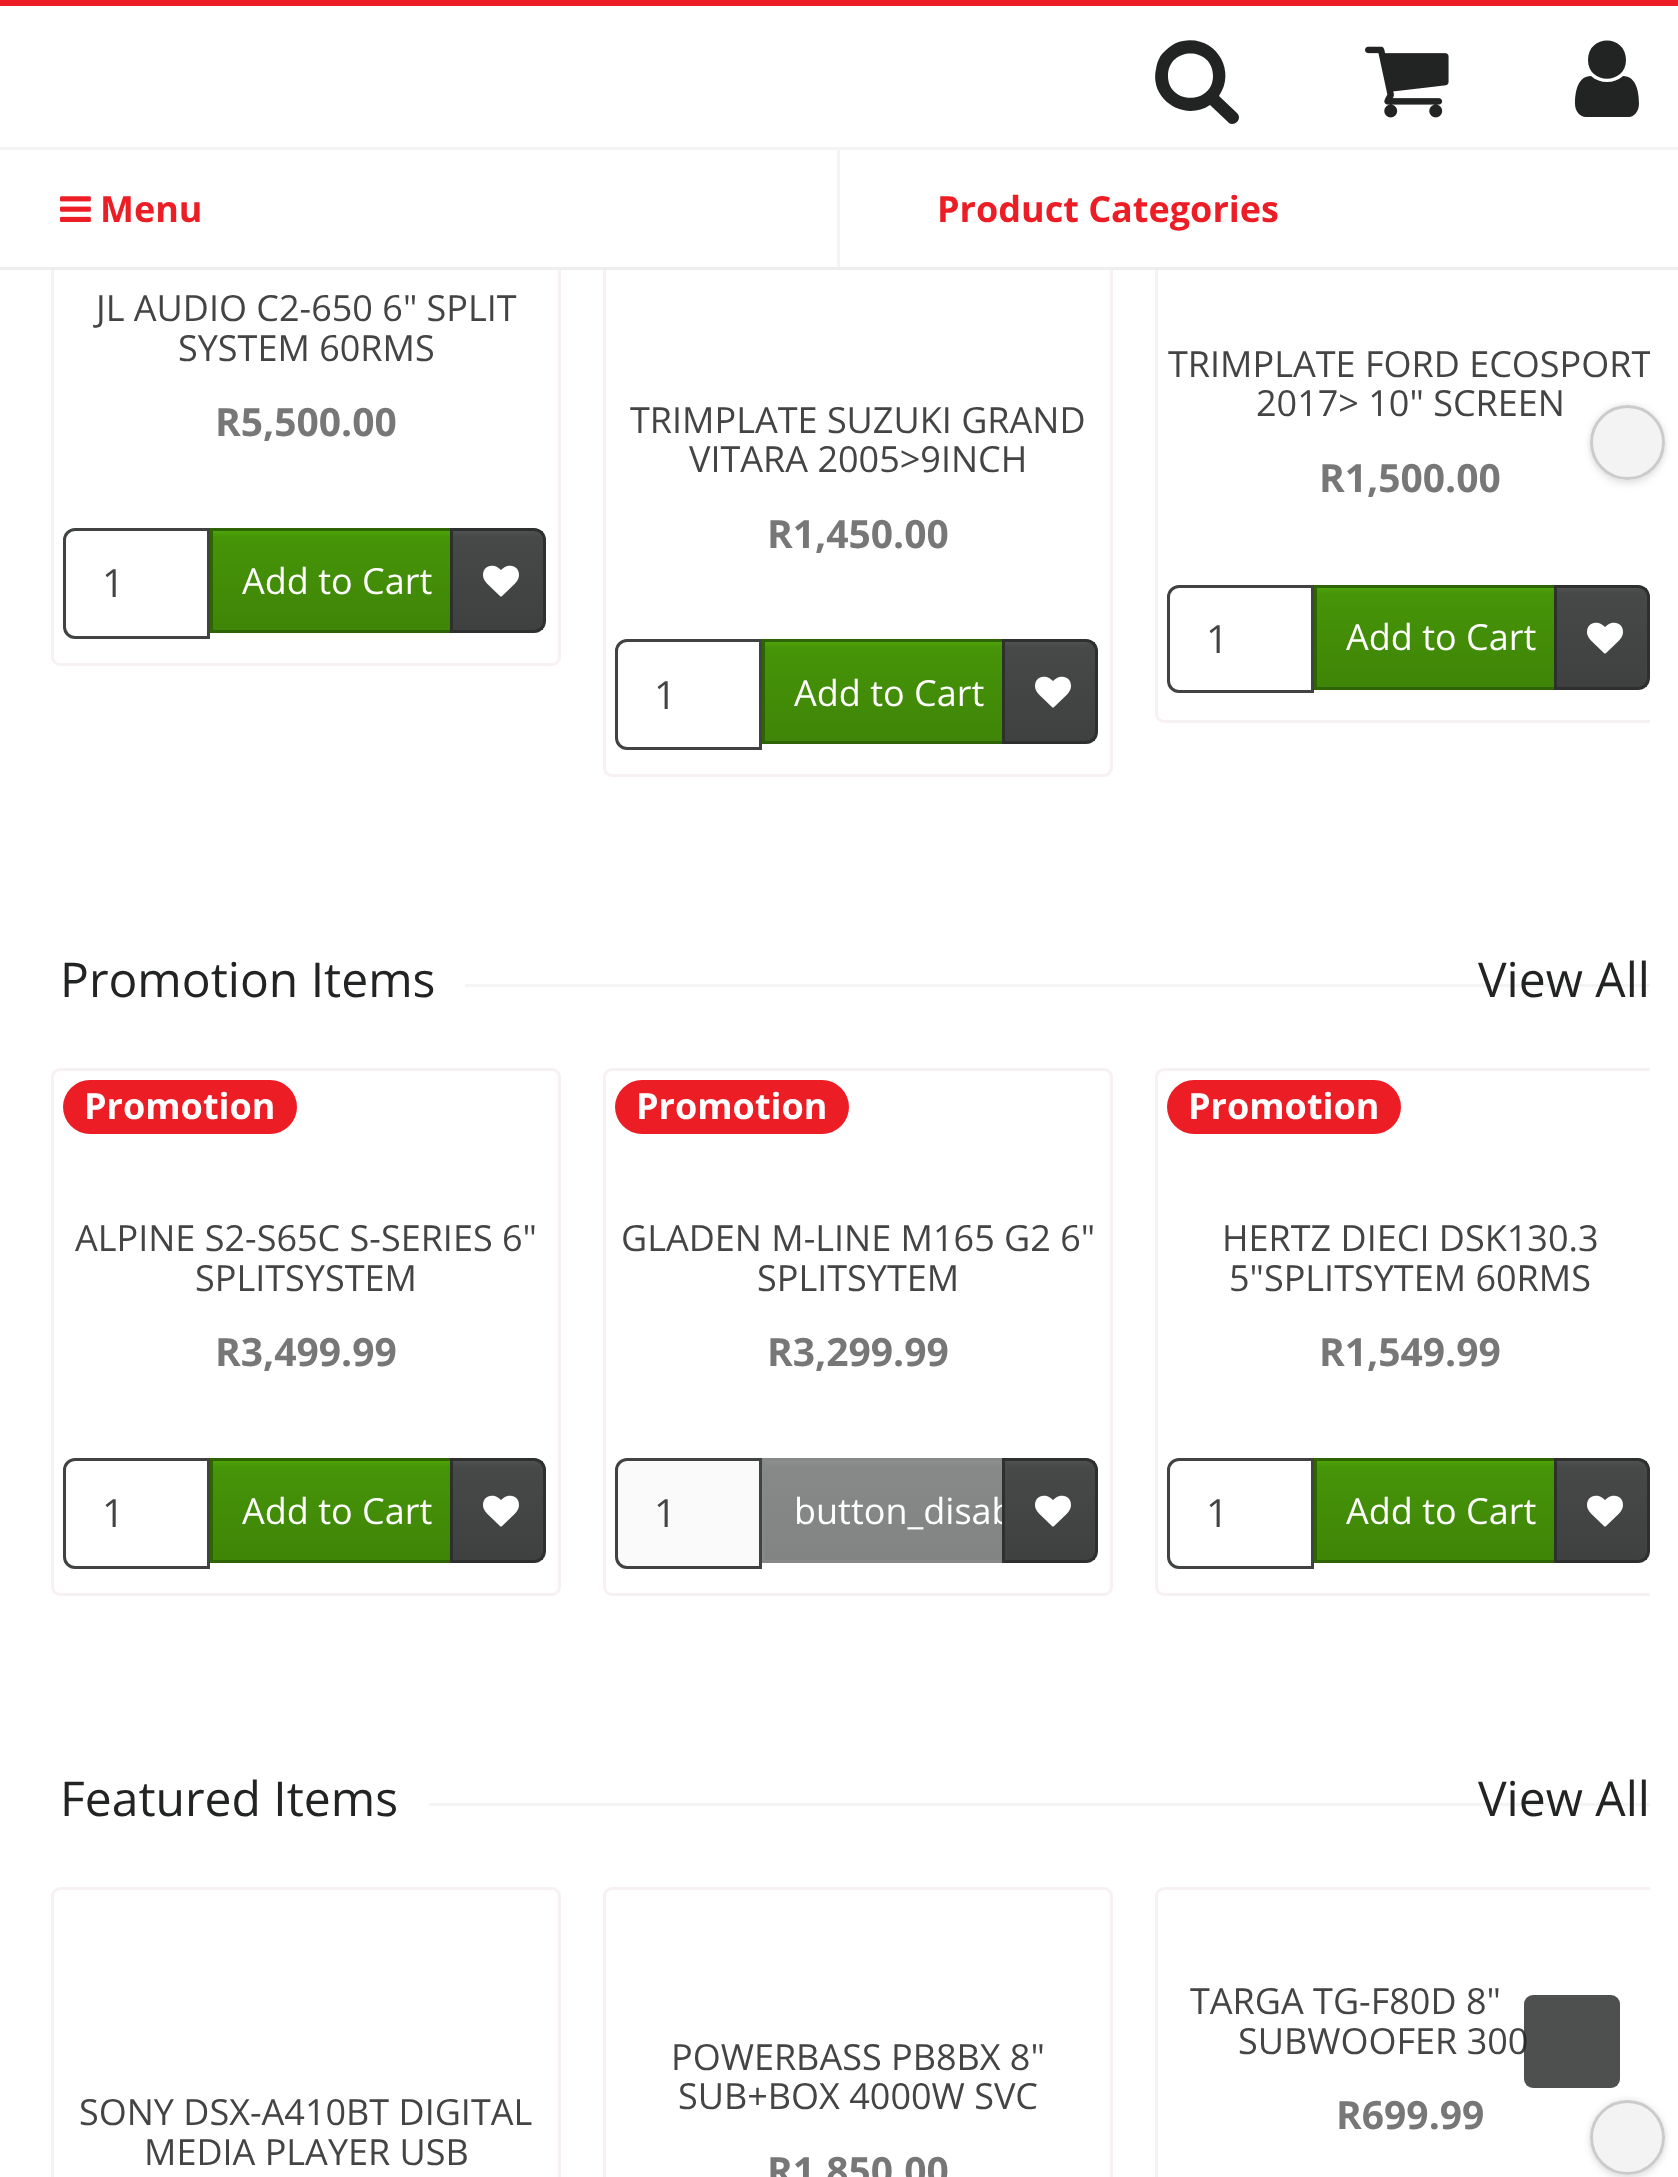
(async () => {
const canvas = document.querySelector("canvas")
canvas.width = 1678
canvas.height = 2177
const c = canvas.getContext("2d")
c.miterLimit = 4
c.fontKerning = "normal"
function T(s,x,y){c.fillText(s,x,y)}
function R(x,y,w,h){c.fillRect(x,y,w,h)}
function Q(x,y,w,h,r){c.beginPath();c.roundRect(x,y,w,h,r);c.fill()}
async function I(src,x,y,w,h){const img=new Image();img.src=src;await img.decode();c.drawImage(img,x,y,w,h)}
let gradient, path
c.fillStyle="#fff"
R(0,0,1678,2177)
c.beginPath()
c.roundRect(52.5,196.5,507,468,7.5)
c.strokeStyle="#f7f1f1"
c.lineWidth=3
c.stroke()
c.beginPath()
c.roundRect(604.5,196.5,507,579,7.5)
c.stroke()
c.save()
c.beginPath()
c.rect(30,174,1620,684)
c.clip()
c.beginPath()
c.roundRect(1156.5,196.5,507,525,7.5)
c.stroke()
c.restore()
R(51,195,1599,72)
c.fillStyle="#ec1d25"
R(0,0,1678,6)
c.fillStyle="#eee"
R(0,267,1678,3)
c.fillStyle="#222323"
path = new Path2D("M1213 76c0 29-45 29-45 0c0-30 45-30 45 0zm26 41c0-1-1-3-2-4l-18-17c18-26-4-61-36-55c-7 1-13 5-18 10c-5 4-8 11-9 18c-7 31 29 53 54 36l18 17c1 1 2 2 4 2c4 0 7-3 7-7z")
c.fill(path)
await I("1.png",1365,46,84,72)
path = new Path2D("M1639 104c0-13-3-28-16-28c-9 8-23 8-32 0c-13 0-16 15-16 28c0 7 5 13 11 13h43c5 0 10-6 10-13zm-13-44c0-26-38-26-38 0c0 25 38 25 38 0z")
c.fill(path)
c.fillStyle="#f5f4f4"
R(0,147,1678,3)
R(837,150,3,117)
await I("2.png",60,196,31,26)
c.font="bold 36px Open Sans"
c.fillStyle="#ec1d25"
T("Menu",100,222)
T("Product Categories",937,222)
c.font="36px Open Sans"
c.fillStyle="#444"
T("JL AUDIO C2-650 6\" SPLIT",96,321)
T("SYSTEM 60RMS",178,361)
c.font="bold 39px Open Sans"
c.fillStyle="#777"
T("R5,500.00",215,436)
c.beginPath()
c.roundRect(64.5,529.5,144,108,[10.5,0,0,10.5])
c.strokeStyle="#414343"
c.stroke()
c.font="39px Open Sans"
c.fillStyle="#444"
T("1",102,597)
gradient = c.createLinearGradient(332,531,332,630)
gradient.addColorStop(0,"#4da309")
gradient.addColorStop(.06,"#469408")
gradient.addColorStop(1,"#3f8507")
c.fillStyle = gradient
R(213,531,237,99)
c.strokeStyle="#2f6405"
c.strokeRect(211.5,529.5,240,102)
c.font="36px Open Sans"
c.fillStyle="#fff"
T("Add to Cart",242,594)
gradient = c.createLinearGradient(498,531,498,630)
gradient.addColorStop(0,"#4f5151")
gradient.addColorStop(.06,"#474949")
gradient.addColorStop(1,"#3f4141")
c.fillStyle = gradient
R(453,531,90,99)
c.beginPath()
c.roundRect(451.5,529.5,93,102,[0,10.5,10.5,0])
c.strokeStyle="#2e2f2f"
c.stroke()
await I("3.png",483,565,36,32)
c.fillStyle="#444"
T("TRIMPLATE SUZUKI GRAND",630,433)
T("VITARA 2005>9INCH",689,472)
c.font="bold 39px Open Sans"
c.fillStyle="#777"
T("R1,450.00",767,548)
c.beginPath()
c.roundRect(616.5,640.5,144,108,[10.5,0,0,10.5])
c.strokeStyle="#414343"
c.stroke()
c.font="39px Open Sans"
c.fillStyle="#444"
T("1",654,709)
gradient = c.createLinearGradient(884,642,884,741)
gradient.addColorStop(0,"#4da309")
gradient.addColorStop(.06,"#469408")
gradient.addColorStop(1,"#3f8507")
c.fillStyle = gradient
R(765,642,237,99)
c.strokeStyle="#2f6405"
c.strokeRect(763.5,640.5,240,102)
c.font="36px Open Sans"
c.fillStyle="#fff"
T("Add to Cart",794,706)
gradient = c.createLinearGradient(1050,642,1050,741)
gradient.addColorStop(0,"#4f5151")
gradient.addColorStop(.06,"#474949")
gradient.addColorStop(1,"#3f4141")
c.fillStyle = gradient
R(1005,642,90,99)
c.beginPath()
c.roundRect(1003.5,640.5,93,102,[0,10.5,10.5,0])
c.strokeStyle="#2e2f2f"
c.stroke()
await I("3.png",1035,676,36,32)
c.save()
c.beginPath()
c.rect(30,174,1620,684)
c.clip()
c.fillStyle="#444"
T("TRIMPLATE FORD ECOSPORT",1168,377)
c.restore()
c.fillStyle="#444"
T("2017> 10\" SCREEN",1256,416)
c.font="bold 39px Open Sans"
c.fillStyle="#777"
T("R1,500.00",1319,492)
c.beginPath()
c.roundRect(1168.5,586.5,144,105,[10.5,0,0,10.5])
c.strokeStyle="#414343"
c.stroke()
c.font="39px Open Sans"
c.fillStyle="#444"
T("1",1206,653)
gradient = c.createLinearGradient(1436,588,1436,687)
gradient.addColorStop(0,"#4da309")
gradient.addColorStop(.06,"#469408")
gradient.addColorStop(1,"#3f8507")
c.fillStyle = gradient
R(1317,588,237,99)
c.strokeStyle="#2f6405"
c.strokeRect(1315.5,586.5,240,102)
c.font="36px Open Sans"
c.fillStyle="#fff"
T("Add to Cart",1346,650)
gradient = c.createLinearGradient(1602,588,1602,687)
gradient.addColorStop(0,"#4f5151")
gradient.addColorStop(.06,"#474949")
gradient.addColorStop(1,"#3f4141")
c.fillStyle = gradient
R(1557,588,90,99)
c.beginPath()
c.roundRect(1555.5,586.5,93,102,[0,10.5,10.5,0])
c.strokeStyle="#2e2f2f"
c.stroke()
await I("3.png",1587,622,36,32)
c.save()
path = new Path2D("M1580 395h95v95h-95zm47.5 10c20.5 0 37.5 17 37.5 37.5c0 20.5-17 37.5-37.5 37.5c-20.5 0-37.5-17-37.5-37.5c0-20.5 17-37.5 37.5-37.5z")
c.clip(path,"evenodd")
c.fillStyle="#4d4d4f29"
c.filter="blur(3px)"
c.beginPath()
c.roundRect(1590,405,75,75,37.5)
c.fill()
c.filter="none"
c.restore()
c.save()
path = new Path2D("M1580 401h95v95h-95zm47.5 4c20.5 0 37.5 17 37.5 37.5c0 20.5-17 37.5-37.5 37.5c-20.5 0-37.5-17-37.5-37.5c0-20.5 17-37.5 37.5-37.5z")
c.clip(path,"evenodd")
c.fillStyle="#4d4d4f14"
c.filter="blur(3px)"
c.beginPath()
c.roundRect(1590,411,75,75,37.5)
c.fill()
c.filter="none"
c.restore()
c.fillStyle="#f0f0f0cc"
c.beginPath()
c.arc(1627.5,442.5,36,0,7)
c.fill()
c.strokeStyle="#cccaca"
c.stroke()
c.fillStyle="#f5f4f4"
R(465,984,1185,3)
c.font="48px Open Sans"
c.fillStyle="#222323"
T("Promotion Items",60,997)
T("View All",1478,997)
c.beginPath()
c.roundRect(52.5,1069.5,507,525,7.5)
c.strokeStyle="#f7f1f1"
c.stroke()
c.fillStyle="#ec1d25"
Q(63,1080,234,54,27)
c.font="bold 36px Open Sans"
c.fillStyle="#fff"
T("Promotion",84,1119)
c.font="36px Open Sans"
c.fillStyle="#444"
T("ALPINE S2-S65C S-SERIES 6\"",75,1251)
T("SPLITSYSTEM",195,1291)
c.font="bold 39px Open Sans"
c.fillStyle="#777"
T("R3,499.99",215,1366)
c.beginPath()
c.roundRect(64.5,1459.5,144,108,[10.5,0,0,10.5])
c.strokeStyle="#414343"
c.stroke()
c.font="39px Open Sans"
c.fillStyle="#444"
T("1",102,1527)
gradient = c.createLinearGradient(332,1461,332,1560)
gradient.addColorStop(0,"#4da309")
gradient.addColorStop(.06,"#469408")
gradient.addColorStop(1,"#3f8507")
c.fillStyle = gradient
R(213,1461,237,99)
c.strokeStyle="#2f6405"
c.strokeRect(211.5,1459.5,240,102)
c.font="36px Open Sans"
c.fillStyle="#fff"
T("Add to Cart",242,1524)
gradient = c.createLinearGradient(498,1461,498,1560)
gradient.addColorStop(0,"#4f5151")
gradient.addColorStop(.06,"#474949")
gradient.addColorStop(1,"#3f4141")
c.fillStyle = gradient
R(453,1461,90,99)
c.beginPath()
c.roundRect(451.5,1459.5,93,102,[0,10.5,10.5,0])
c.strokeStyle="#2e2f2f"
c.stroke()
await I("3.png",483,1495,36,32)
c.beginPath()
c.roundRect(604.5,1069.5,507,525,7.5)
c.strokeStyle="#f7f1f1"
c.stroke()
c.fillStyle="#ec1d25"
Q(615,1080,234,54,27)
c.font="bold 36px Open Sans"
c.fillStyle="#fff"
T("Promotion",636,1119)
c.font="36px Open Sans"
c.fillStyle="#444"
T("GLADEN M-LINE M165 G2 6\"",621,1251)
T("SPLITSYTEM",757,1291)
c.font="bold 39px Open Sans"
c.fillStyle="#777"
T("R3,299.99",767,1366)
c.fillStyle="#fafafa"
c.beginPath()
c.roundRect(616.5,1459.5,144,108,[10.5,0,0,10.5])
c.fill()
c.strokeStyle="#414343"
c.stroke()
c.font="39px Open Sans"
c.fillStyle="#444"
T("1",654,1527)
c.fillStyle="#878989"
R(762,1458,240,105)
gradient = c.createLinearGradient(884,1461,884,1560)
gradient.addColorStop(0,"#8d8e8e")
gradient.addColorStop(.06,"#878989")
gradient.addColorStop(1,"#828484")
c.fillStyle = gradient
R(765,1461,237,99)
c.font="36px Open Sans"
c.fillStyle="#fff"
T("button_disab",794,1524)
gradient = c.createLinearGradient(1050,1461,1050,1560)
gradient.addColorStop(0,"#4f5151")
gradient.addColorStop(.06,"#474949")
gradient.addColorStop(1,"#3f4141")
c.fillStyle = gradient
R(1005,1461,90,99)
c.beginPath()
c.roundRect(1003.5,1459.5,93,102,[0,10.5,10.5,0])
c.strokeStyle="#2e2f2f"
c.stroke()
await I("3.png",1035,1495,36,32)
c.save()
c.beginPath()
c.rect(30,1047,1620,630)
c.clip()
c.beginPath()
c.roundRect(1156.5,1069.5,507,525,7.5)
c.strokeStyle="#f7f1f1"
c.stroke()
c.restore()
c.fillStyle="#ec1d25"
Q(1167,1080,234,54,27)
c.font="bold 36px Open Sans"
c.fillStyle="#fff"
T("Promotion",1188,1119)
c.font="36px Open Sans"
c.fillStyle="#444"
T("HERTZ DIECI DSK130.3",1222,1251)
T("5\"SPLITSYTEM 60RMS",1229,1291)
c.font="bold 39px Open Sans"
c.fillStyle="#777"
T("R1,549.99",1319,1366)
c.beginPath()
c.roundRect(1168.5,1459.5,144,108,[10.5,0,0,10.5])
c.strokeStyle="#414343"
c.stroke()
c.font="39px Open Sans"
c.fillStyle="#444"
T("1",1206,1527)
gradient = c.createLinearGradient(1436,1461,1436,1560)
gradient.addColorStop(0,"#4da309")
gradient.addColorStop(.06,"#469408")
gradient.addColorStop(1,"#3f8507")
c.fillStyle = gradient
R(1317,1461,237,99)
c.strokeStyle="#2f6405"
c.strokeRect(1315.5,1459.5,240,102)
c.font="36px Open Sans"
c.fillStyle="#fff"
T("Add to Cart",1346,1524)
gradient = c.createLinearGradient(1602,1461,1602,1560)
gradient.addColorStop(0,"#4f5151")
gradient.addColorStop(.06,"#474949")
gradient.addColorStop(1,"#3f4141")
c.fillStyle = gradient
R(1557,1461,90,99)
c.beginPath()
c.roundRect(1555.5,1459.5,93,102,[0,10.5,10.5,0])
c.strokeStyle="#2e2f2f"
c.stroke()
await I("3.png",1587,1495,36,32)
c.fillStyle="#f5f4f4"
R(429,1803,1221,3)
c.font="48px Open Sans"
c.fillStyle="#222323"
T("Featured Items",60,1816)
T("View All",1478,1816)
c.beginPath()
c.roundRect(52.5,1888.5,507,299,7.5)
c.strokeStyle="#f7f1f1"
c.stroke()
c.font="36px Open Sans"
c.fillStyle="#444"
T("SONY DSX-A410BT DIGITAL",79,2125)
T("MEDIA PLAYER USB",144,2165)
c.beginPath()
c.roundRect(604.5,1888.5,507,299,7.5)
c.stroke()
T("POWERBASS PB8BX 8\"",671,2070)
T("SUB+BOX 4000W SVC",678,2109)
c.font="bold 39px Open Sans"
c.fillStyle="#777"
T("R1,850.00",767,2185)
c.save()
c.beginPath()
c.rect(30,1866,1620,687)
c.clip()
c.beginPath()
c.roundRect(1156.5,1888.5,507,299,7.5)
c.stroke()
c.restore()
c.font="36px Open Sans"
c.fillStyle="#444"
T("TARGA TG-F80D 8\"",1190,2014)
T("SUBWOOFER 300",1238,2054)
c.font="bold 39px Open Sans"
c.fillStyle="#777"
T("R699.99",1336,2129)
c.save()
path = new Path2D("M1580 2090h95v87h-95zm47.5 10c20.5 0 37.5 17 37.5 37.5c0 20.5-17 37.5-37.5 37.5c-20.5 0-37.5-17-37.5-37.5c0-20.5 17-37.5 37.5-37.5z")
c.clip(path,"evenodd")
c.fillStyle="#4d4d4f29"
c.filter="blur(3px)"
c.beginPath()
c.roundRect(1590,2100,75,75,37.5)
c.fill()
c.filter="none"
c.restore()
c.save()
path = new Path2D("M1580 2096h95v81h-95zm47.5 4c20.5 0 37.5 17 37.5 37.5c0 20.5-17 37.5-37.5 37.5c-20.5 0-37.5-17-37.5-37.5c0-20.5 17-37.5 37.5-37.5z")
c.clip(path,"evenodd")
c.fillStyle="#4d4d4f14"
c.filter="blur(3px)"
c.beginPath()
c.roundRect(1590,2106,75,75,37.5)
c.fill()
c.filter="none"
c.restore()
c.fillStyle="#f0f0f0cc"
c.beginPath()
c.arc(1627.5,2137.5,36,0,7)
c.fill()
c.strokeStyle="#cccaca"
c.stroke()
c.fillStyle="#222323cc"
Q(1524,1995,96,93,9)
})()
